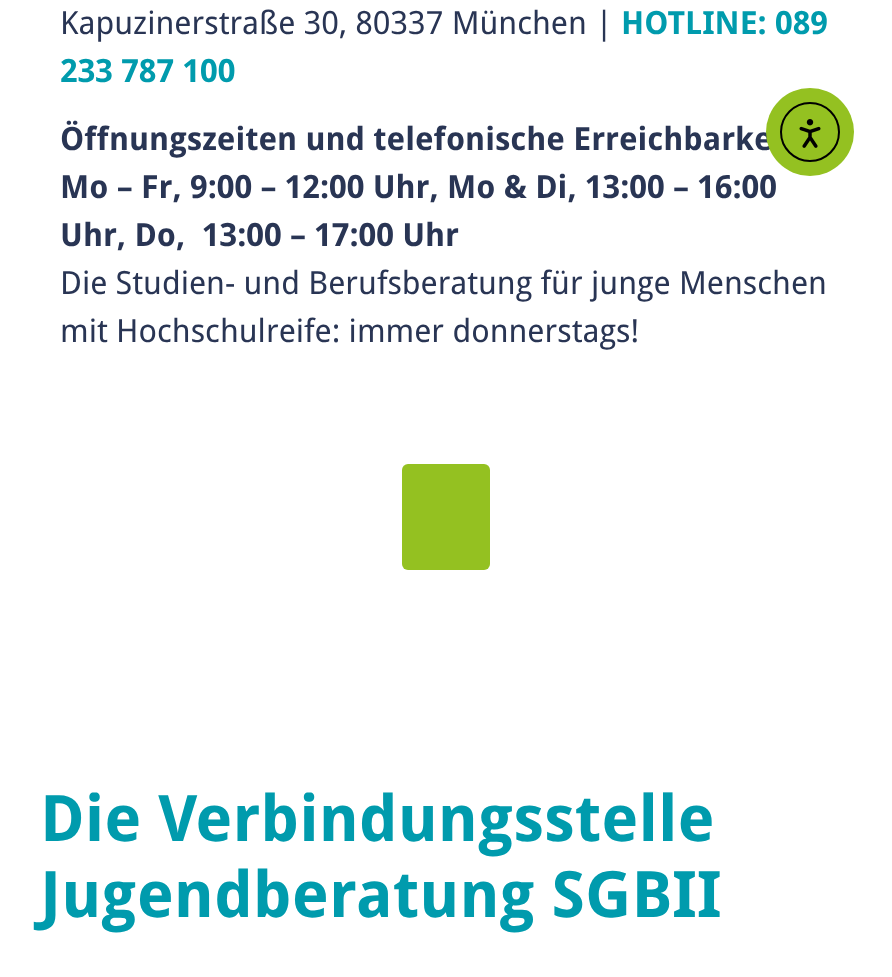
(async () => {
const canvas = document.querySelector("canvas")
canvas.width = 892
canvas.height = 977
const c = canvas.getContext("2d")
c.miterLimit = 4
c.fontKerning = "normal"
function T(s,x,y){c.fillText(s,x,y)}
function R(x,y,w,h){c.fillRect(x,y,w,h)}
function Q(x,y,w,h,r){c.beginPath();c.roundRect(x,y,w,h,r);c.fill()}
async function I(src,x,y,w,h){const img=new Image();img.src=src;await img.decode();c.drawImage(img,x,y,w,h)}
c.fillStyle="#fff"
R(0,0,892,977)
c.font="32px Droid Sans"
c.fillStyle="#293554"
T("Kapuzinerstraße 30, 80337 München |",60,34)
c.font="bold 32px Droid Sans"
c.fillStyle="#009bad"
T("HOTLINE:",621,34)
T("089",775,34)
T("233 787 100",60,82)
c.fillStyle="#293554"
T("Öffnungszeiten und telefonische Erreichbarke",60,150)
T("Mo – Fr, 9:00 – 12:00 Uhr, Mo & Di, 13:00 – 16:00",60,198)
T("Uhr, Do,  13:00 – 17:00 Uhr",60,246)
c.font="32px Droid Sans"
T("Die Studien- und Berufsberatung für junge Menschen",60,294)
T("mit Hochschulreife: immer donnerstags!",60,342)
c.fillStyle="#94c121"
Q(402,464,88,106,6)
c.font="bold 64px Droid Sans"
c.fillStyle="#009bad"
T("Die Verbindungsstelle",40,841)
T("Jugendberatung SGBII",40,917)
c.fillStyle="#94c121"
c.beginPath()
c.arc(810,132,44,0,7)
c.fill()
c.beginPath()
c.arc(810,132,29,0,7)
c.strokeStyle="#000"
c.lineWidth=2
c.stroke()
await I("1.png",799,119,22,29)
})()
